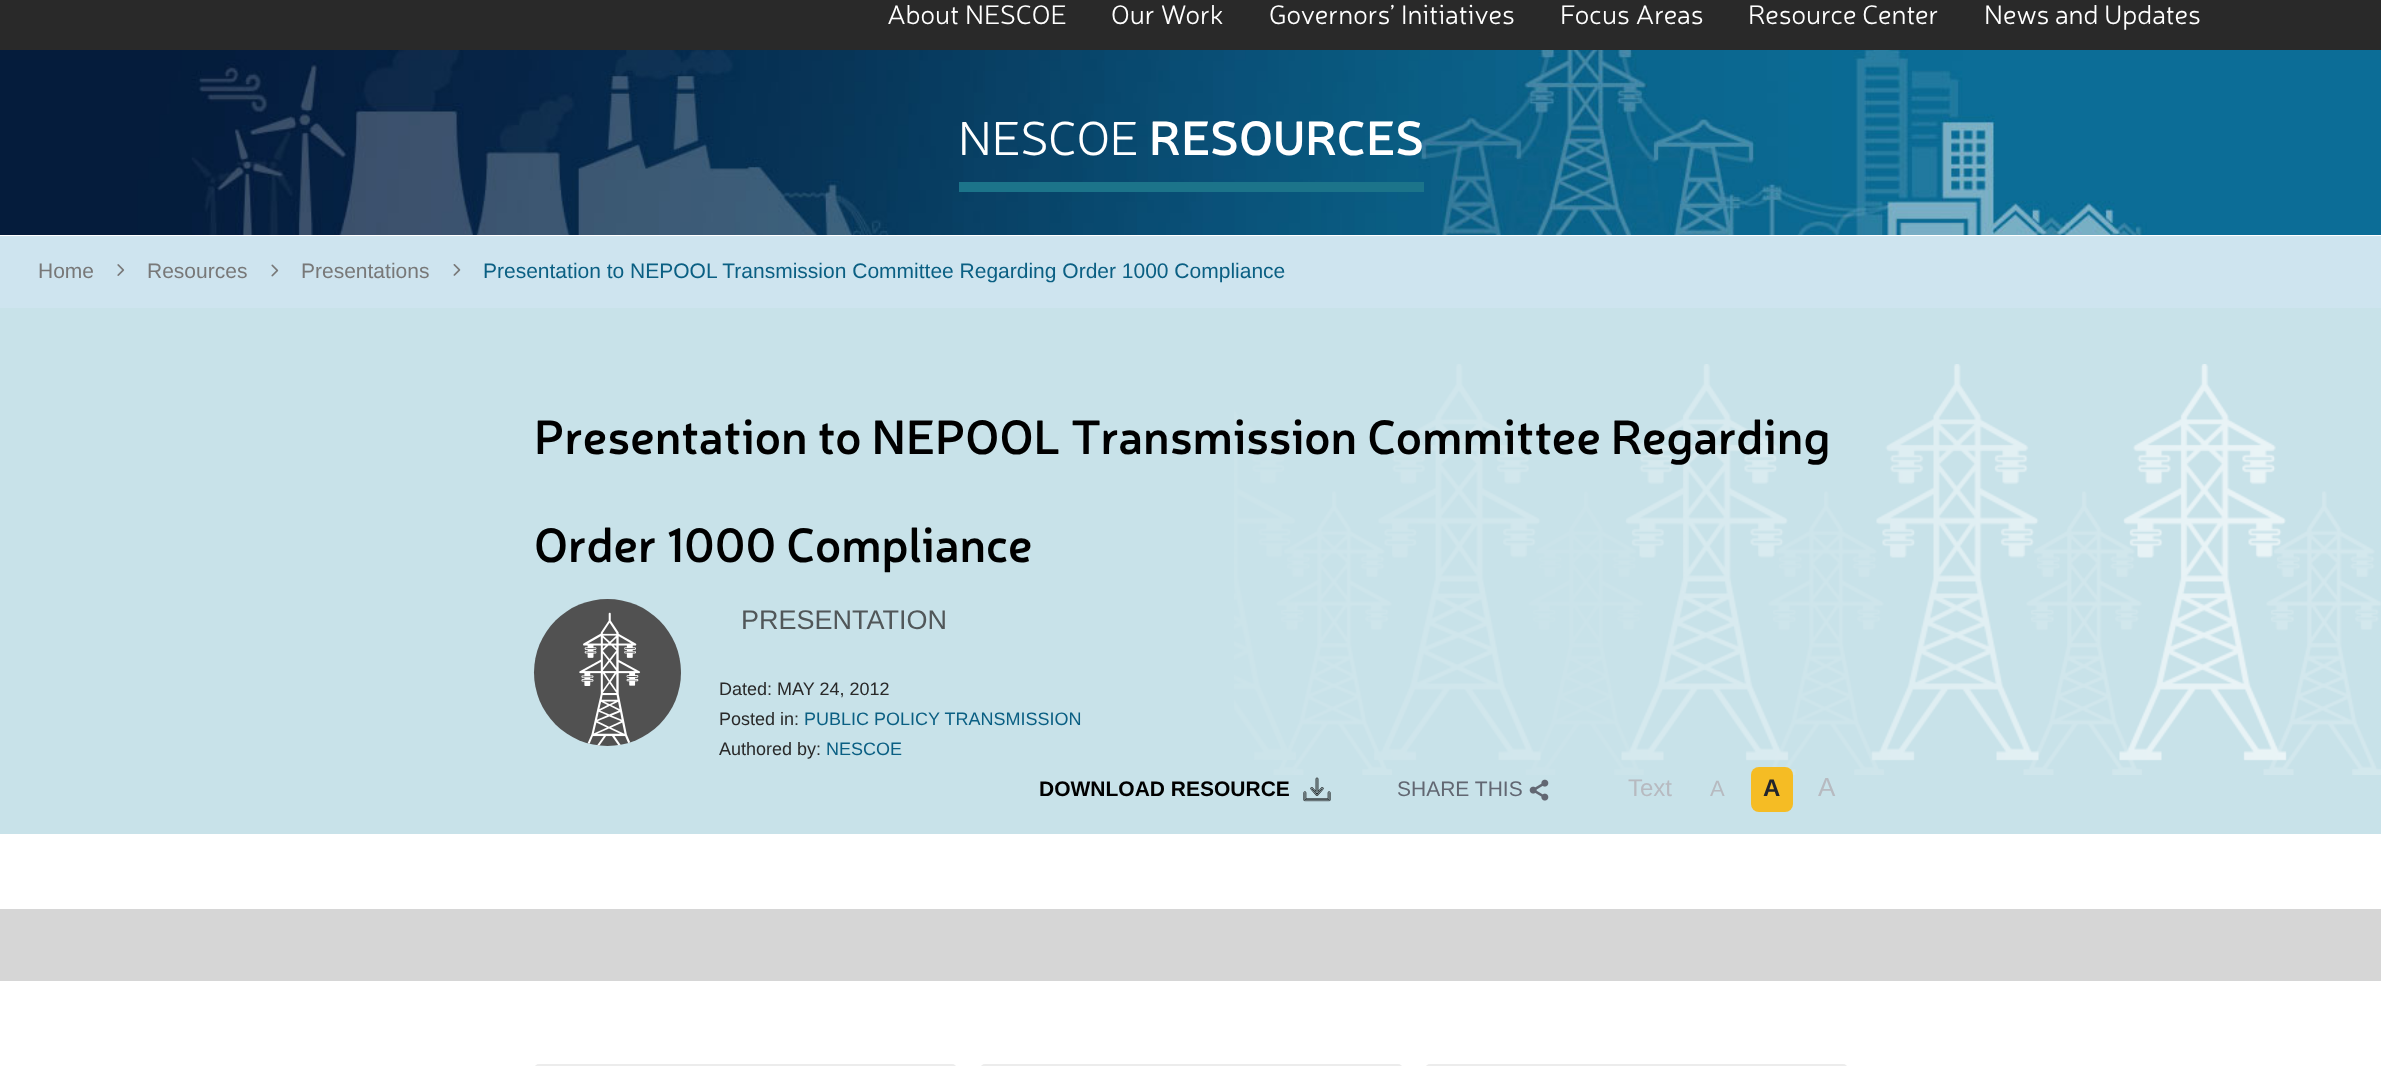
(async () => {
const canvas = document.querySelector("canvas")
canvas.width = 2381
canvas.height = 1066
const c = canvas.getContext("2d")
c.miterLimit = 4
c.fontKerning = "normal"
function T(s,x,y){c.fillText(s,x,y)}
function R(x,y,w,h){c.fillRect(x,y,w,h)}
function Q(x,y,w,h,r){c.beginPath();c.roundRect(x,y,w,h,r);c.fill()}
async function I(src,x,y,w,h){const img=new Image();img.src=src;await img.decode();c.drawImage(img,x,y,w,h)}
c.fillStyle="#fff"
R(0,0,2381,1066)
c.fillStyle="#292929"
R(0,0,2381,50)
c.font="300 27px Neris"
c.fillStyle="#fff"
T("About NESCOE",887,24)
T("Our Work",1111,24)
T("Governors’ Initiatives",1269,24)
T("Focus Areas",1560,24)
T("Resource Center",1748,24)
T("News and Updates",1984,24)
await I("1.png",0,50,2381,185)
c.fillStyle="#1c748a"
R(959,182,465,10)
c.font="300 48px Neris"
c.fillStyle="#fff"
T("NESCOE",958,155)
c.font="600 48px Neris"
T("RESOURCES",1149,155)
c.fillStyle="#cee4ef"
R(0,236,2381,72)
c.font="21px Liberation Sans"
c.fillStyle="#787878"
T("Home",38,278)
await I("2.png",117,264,8,12)
T("Resources",147,278)
await I("3.png",271,264,8,13)
T("Presentations",301,278)
await I("4.png",453,264,8,12)
c.fillStyle="#0a5f83"
T("Presentation to NEPOOL Transmission Committee Regarding Order 1000 Compliance",483,278)
c.fillStyle="#c8e2e9"
R(0,308,2381,526)
await I("5.png",1234,364,1147,411)
c.font="600 48px Neris"
c.fillStyle="#000"
T("Presentation to NEPOOL Transmission Committee Regarding",534,454)
T("Order 1000 Compliance",534,562)
c.fillStyle="#515151"
c.beginPath()
c.arc(607.5,672.5,73.5,0,7)
c.fill()
await I("6.png",579,612,62,134)
c.font="27px Liberation Sans"
c.fillStyle="#515759"
T("PRESENTATION",741,629)
c.font="18px Liberation Sans"
c.fillStyle="#292929"
T("Dated: MAY 24, 2012",719,695)
T("Posted in:",719,725)
c.fillStyle="#0a5f83"
T("PUBLIC POLICY TRANSMISSION",804,725)
c.fillStyle="#292929"
T("Authored by:",719,755)
c.fillStyle="#0a5f83"
T("NESCOE",826,755)
c.font="bold 21px Liberation Sans"
c.fillStyle="#000"
T("DOWNLOAD RESOURCE",1039,796)
await I("7.png",1303,777,28,25)
c.font="21px Liberation Sans"
c.fillStyle="#626772"
T("SHARE THIS",1397,796)
await I("8.png",1529,779,20,22)
c.font="24px Liberation Sans"
c.fillStyle="#b7bac0"
T("Text",1628,796)
c.font="22px Liberation Sans"
T("A",1710,796)
c.fillStyle="#f5bc24"
Q(1751,767,42,45,8)
c.font="bold 24px Liberation Sans"
c.fillStyle="#22252c"
T("A",1763,796)
c.font="26px Liberation Sans"
c.fillStyle="#b7bac0"
T("A",1818,796)
c.fillStyle="#d6d6d6"
R(0,909,2381,72)
c.fillStyle="#ececec"
Q(534,1064,423,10,8)
Q(980,1064,423,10,8)
Q(1425,1064,423,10,8)
})()
